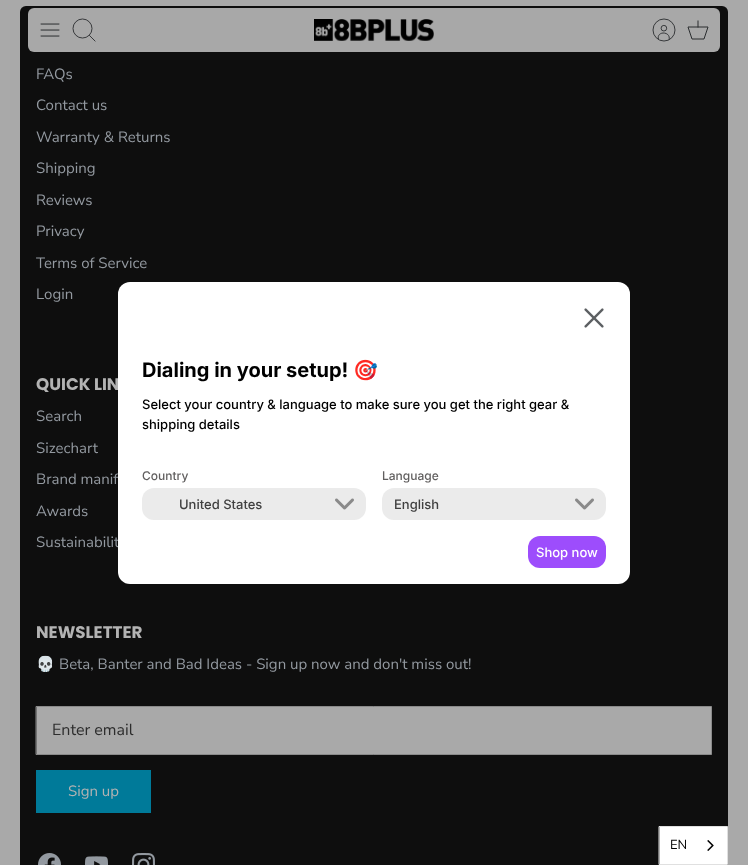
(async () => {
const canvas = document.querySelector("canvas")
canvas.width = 748
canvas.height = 865
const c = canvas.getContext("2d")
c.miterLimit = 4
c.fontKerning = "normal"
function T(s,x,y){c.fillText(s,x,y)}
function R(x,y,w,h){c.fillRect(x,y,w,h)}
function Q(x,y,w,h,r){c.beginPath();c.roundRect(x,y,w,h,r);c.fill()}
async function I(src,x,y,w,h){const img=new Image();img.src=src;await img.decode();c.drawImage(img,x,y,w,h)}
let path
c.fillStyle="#a9a9a9"
R(0,0,748,865)
c.fillStyle="#0e0e0e"
Q(20,6,708,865,6)
c.fillStyle="#a8a8a8"
Q(28,8,692,44,6)
await I("1.png",40,23,20,14)
c.beginPath()
c.arc(82.5,28.5,9.5,0,7)
c.strokeStyle="#2a2d2f"
c.lineWidth=0.9
c.stroke()
path = new Path2D("M89.5 35.5l5.5 5.5")
c.lineCap="square"
c.stroke(path)
await I("2.png",314,19,120,22)
path = new Path2D("M669 40c2.5-9-13-9.5-10.5-.5")
c.lineCap="butt"
c.stroke(path)
c.beginPath()
c.arc(663.9,28.2,2.8,0,7)
c.stroke()
c.beginPath()
c.arc(664,30,11,0,7)
c.stroke()
path = new Path2D("M688 27h20l-4 12h-12z")
c.lineWidth=1
c.stroke(path)
path = new Path2D("M698 27v-6")
c.lineCap="square"
c.stroke(path)
c.font="15px Nunito Sans"
c.fillStyle="#9399a0"
T("FAQs",36,79)
T("Contact us",36,110)
T("Warranty & Returns",36,142)
T("Shipping",36,173)
T("Reviews",36,205)
T("Privacy",36,236)
T("Terms of Service",36,268)
T("Login",36,299)
c.font="bold 16.75px Poppins"
c.fillStyle="#b3b3b3"
T("QUICK LIN",36,390)
c.font="15px Nunito Sans"
c.fillStyle="#9399a0"
T("Search",36,421)
T("Sizechart",36,453)
T("Brand manif",36,484)
T("Awards",36,516)
T("Sustainabilit",36,547)
c.font="bold 16.75px Poppins"
c.fillStyle="#b3b3b3"
T("NEWSLETTER",36,638)
c.font="15px Noto Color Emoji"
c.fillStyle="#9399a0"
T("💀",36,669)
c.font="15px Nunito Sans"
T("Beta, Banter and Bad Ideas - Sign up now and don't miss out!",59,669)
c.fillStyle="#a9a9a9"
c.beginPath()
c.rect(36.5,706.5,675,48)
c.fill()
c.strokeStyle="#8a8a8a"
c.stroke()
c.font="16px Nunito Sans"
c.fillStyle="#2d2d2d"
T("Enter email",52,735)
c.fillStyle="#007a99"
R(36,770,115,43)
c.font="15px Nunito Sans"
c.fillStyle="#b3b3b3"
T("Sign up",68,796)
await I("3.png",38,853,23,12)
await I("4.png",85,856,23,9)
await I("5.png",132,853,23,12)
c.fillStyle="#fff"
Q(118,282,512,302,12)
await I("6.png",584,308,20,20)
c.font="bold 20px Inter"
c.fillStyle="#000"
T("Dialing in your setup!",142,377)
c.font="bold 20px Noto Color Emoji"
T("🎯",353,377)
c.font="500 13px Inter"
T("Select your country & language to make sure you get the right gear &",142,409)
T("shipping details",142,429)
c.font="500 12px Inter"
c.fillStyle="#615f5f"
T("Country",142,480)
c.fillStyle="#ebebeb"
Q(142,488,224,32,12)
c.font="500 13px Inter"
c.fillStyle="#404040"
T("United States",179,509)
await I("7.png",335,498,19,12)
c.font="500 12px Inter"
c.fillStyle="#615f5f"
T("Language",382,480)
c.fillStyle="#ebebeb"
Q(382,488,224,32,12)
c.font="500 13px Inter"
c.fillStyle="#404040"
T("English",394,509)
await I("7.png",575,498,19,12)
c.fillStyle="#9d4dfc"
Q(528,536,78,32,12)
c.fillStyle="#fff"
T("Shop now",536,557)
c.beginPath()
c.rect(659.5,826.5,68,38)
c.fill()
c.strokeStyle="#e0e0e0"
c.stroke()
c.font="13px Nunito Sans"
c.fillStyle="#000"
T("EN",670,849)
await I("8.png",707,840,7,11)
})()
